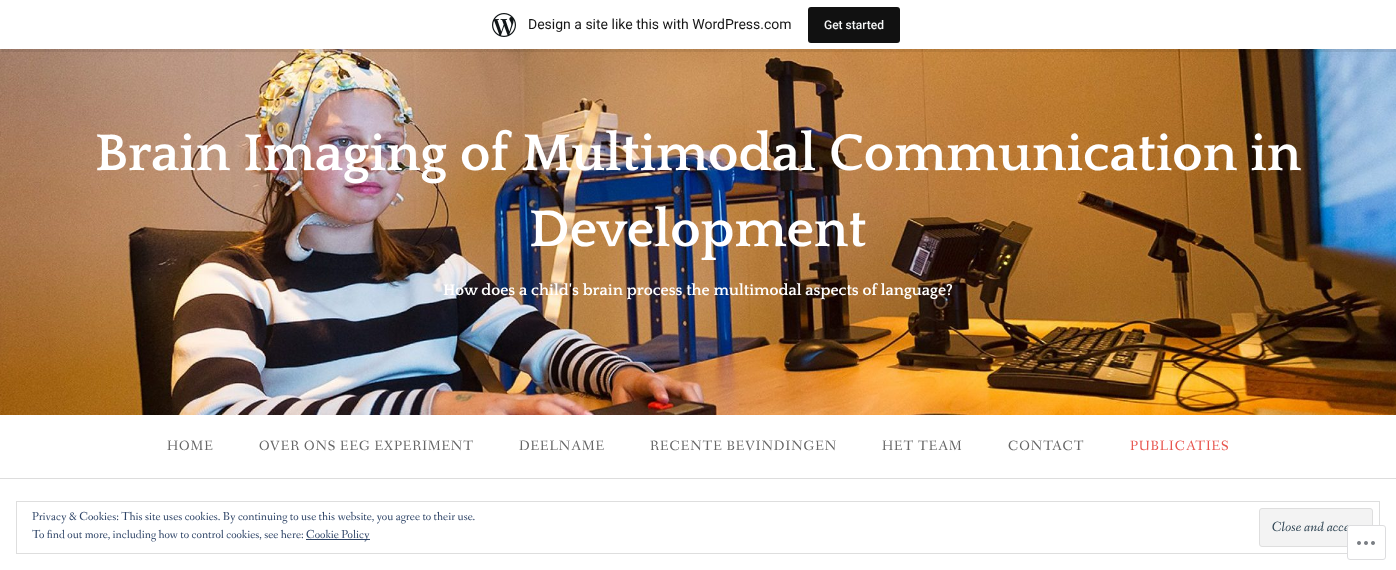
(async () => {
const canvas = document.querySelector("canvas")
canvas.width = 1396
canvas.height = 570
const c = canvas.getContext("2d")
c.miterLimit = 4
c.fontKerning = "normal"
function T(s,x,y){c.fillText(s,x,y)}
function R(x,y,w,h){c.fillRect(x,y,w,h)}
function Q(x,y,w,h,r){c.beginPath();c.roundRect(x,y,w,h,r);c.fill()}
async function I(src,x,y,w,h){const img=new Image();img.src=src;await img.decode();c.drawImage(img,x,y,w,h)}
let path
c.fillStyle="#fff"
R(0,0,1396,570)
await I("2.png",0,49,1396,366)
c.fillStyle="#00000014"
path = new Path2D("M1 49v3h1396v-49h-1v46z")
c.fill(path)
await I("1.png",492,13,24,24)
c.font="14px Roboto"
c.fillStyle="#171717"
T("Design a site like this with WordPress.com",528,29)
c.fillStyle="#111"
Q(808,7,92,36,3)
c.font="500 12px Roboto"
c.fillStyle="#f6f7f7"
T("Get started",824,29)
c.font="bold 54px Quattrocento"
c.fillStyle="#fff"
T("Brain Imaging of Multimodal Communication in",95,170)
T("Development",529,246)
c.font="bold 16px Quattrocento"
T("How does a child's brain process the multimodal aspects of language?",443,295)
c.fillStyle="#ddd"
R(0,478,1396,1)
c.letterSpacing="1px"
c.font="14px Fanwood Text"
c.fillStyle="#666"
T("HOME",167,450)
T("OVER ONS EEG EXPERIMENT",259,450)
T("DEELNAME",519,450)
T("RECENTE BEVINDINGEN",650,450)
T("HET TEAM",882,450)
T("CONTACT",1008,450)
c.fillStyle="#e8554e"
T("PUBLICATIES",1130,450)
c.strokeStyle="#dedede"
c.strokeRect(16.5,501.5,1363,52)
c.letterSpacing="0px"
c.font="12px Fanwood Text"
c.fillStyle="#2e4467"
T("Privacy & Cookies: This site uses cookies. By continuing to use this website, you agree to their use.",32,520)
c.fillStyle="#f3f3f3"
c.beginPath()
c.roundRect(1259.5,508.5,113,38,2.5)
c.fill()
c.stroke()
c.font="italic 14px Fanwood Text"
c.fillStyle="#2e4453"
T("Close and acce",1272,531)
c.font="12px Fanwood Text"
c.fillStyle="#2e4467"
T("To find out more, including how to control cookies, see here:",32,538)
R(306,539,64,1)
T("Cookie Policy",306,538)
c.fillStyle="#fffffffa"
Q(1347,525,39,35,3)
c.beginPath()
c.roundRect(1347.5,525.5,38,34,2.5)
c.strokeStyle="#dcdcdefa"
c.stroke()
await I("3.png",1357,541,18,4)
})()
